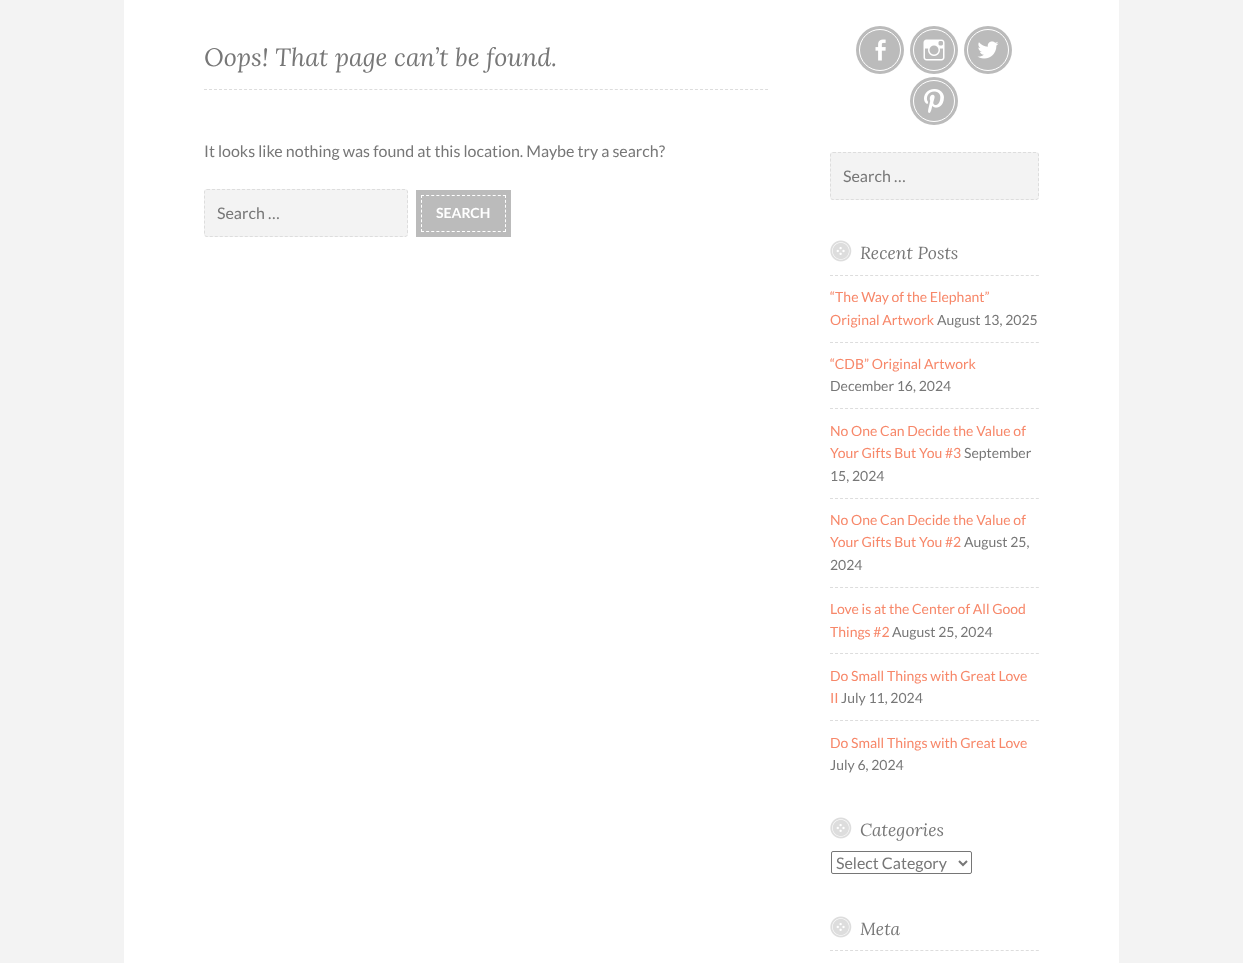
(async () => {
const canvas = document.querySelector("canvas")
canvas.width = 1243
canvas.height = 963
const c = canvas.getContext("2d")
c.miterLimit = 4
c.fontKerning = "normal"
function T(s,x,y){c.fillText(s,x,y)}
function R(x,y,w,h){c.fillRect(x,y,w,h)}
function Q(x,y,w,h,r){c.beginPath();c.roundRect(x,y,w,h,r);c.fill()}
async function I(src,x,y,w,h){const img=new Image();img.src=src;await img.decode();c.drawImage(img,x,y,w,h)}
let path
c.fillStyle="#f3f3f3"
R(0,0,1243,963)
c.fillStyle="#fff"
R(124,0,995,963)
path = new Path2D("M204 89.5h564")
c.strokeStyle="#ddd"
c.setLineDash([3,2.01])
c.stroke(path)
c.font="italic 25px Lora"
c.fillStyle="#777"
T("Oops! That page can’t be found.",204,66)
c.font="16px Lato"
T("It looks like nothing was found at this location. Maybe try a search?",204,157)
c.fillStyle="#f3f3f3"
Q(204,189,204,48,3)
path = new Path2D("M207 189.5h198c1.5 0 2.5 1 2.5 2.5v42c0 1.5-1 2.5-2.5 2.5h-198c-1.5 0-2.5-1-2.5-2.5v-42c0-1.5 1-2.5 2.5-2.5z")
c.setLineDash([3,2])
c.stroke(path)
c.fillStyle="#777"
T("Search …",217,219)
c.fillStyle="#bbb"
R(421,195,85,37)
path = new Path2D("M421 195.5h85")
c.strokeStyle="#fff"
c.setLineDash([3,2.12])
c.stroke(path)
path = new Path2D("M505.5 195v37")
c.setLineDash([3,1.86])
c.stroke(path)
path = new Path2D("M421 231.5h85")
c.setLineDash([3,2.12])
c.stroke(path)
path = new Path2D("M421.5 195v37")
c.setLineDash([3,1.86])
c.stroke(path)
c.strokeStyle="#bbb"
c.lineWidth=5
c.setLineDash([])
c.strokeRect(418.5,192.5,90,42)
c.font="bold 14px Lato"
c.fillStyle="#fff"
T("SEARCH",436,218)
c.fillStyle="#bbb"
c.beginPath()
c.arc(880,50,24,0,7)
c.fill()
await I("1.png",875,39,11,22)
c.beginPath()
c.arc(880,50,20.5,0,7)
c.strokeStyle="#fff"
c.lineWidth=1
c.stroke()
c.beginPath()
c.arc(934,50,24,0,7)
c.fill()
await I("2.png",923,39,22,22)
c.beginPath()
c.arc(934,50,20.5,0,7)
c.stroke()
c.beginPath()
c.arc(988,50,24,0,7)
c.fill()
await I("3.png",977,41,22,18)
c.beginPath()
c.arc(988,50,20.5,0,7)
c.stroke()
c.beginPath()
c.arc(934,101,24,0,7)
c.fill()
await I("4.png",924,89,20,24)
c.beginPath()
c.arc(934,101,20.5,0,7)
c.stroke()
c.fillStyle="#f3f3f3"
Q(830,152,209,48,3)
path = new Path2D("M833 152.5h203c1.5 0 2.5 1 2.5 2.5v42c0 1.5-1 2.5-2.5 2.5h-203c-1.5 0-2.5-1-2.5-2.5v-42c0-1.5 1-2.5 2.5-2.5z")
c.strokeStyle="#ddd"
c.setLineDash([3,2])
c.stroke(path)
c.font="16px Lato"
c.fillStyle="#777"
T("Search …",843,182)
await I("5.png",830,240,22,22)
c.font="italic 17.5px Lora"
T("Recent Posts",860,259)
path = new Path2D("M830 275.5h209")
c.setLineDash([3,2.02])
c.stroke(path)
c.font="14px Lato"
c.fillStyle="#f78769"
T("“The Way of the Elephant”",830,302)
T("Original Artwork",830,325)
c.fillStyle="#777"
T("August 13, 2025",937,325)
path = new Path2D("M830 342.5h209")
c.stroke(path)
c.fillStyle="#f78769"
T("“CDB” Original Artwork",830,369)
c.fillStyle="#777"
T("December 16, 2024",830,391)
path = new Path2D("M830 408.5h209")
c.stroke(path)
c.fillStyle="#f78769"
T("No One Can Decide the Value of",830,436)
T("Your Gifts But You #3",830,458)
c.fillStyle="#777"
T("September",964,458)
T("15, 2024",830,481)
path = new Path2D("M830 498.5h209")
c.stroke(path)
c.fillStyle="#f78769"
T("No One Can Decide the Value of",830,525)
T("Your Gifts But You #2",830,547)
c.fillStyle="#777"
T("August 25,",964,547)
T("2024",830,570)
path = new Path2D("M830 587.5h209")
c.stroke(path)
c.fillStyle="#f78769"
T("Love is at the Center of All Good",830,614)
T("Things #2",830,637)
c.fillStyle="#777"
T("August 25, 2024",892,637)
path = new Path2D("M830 653.5h209")
c.stroke(path)
c.fillStyle="#f78769"
T("Do Small Things with Great Love",830,681)
T("II",830,703)
c.fillStyle="#777"
T("July 11, 2024",841,703)
path = new Path2D("M830 720.5h209")
c.stroke(path)
c.fillStyle="#f78769"
T("Do Small Things with Great Love",830,748)
c.fillStyle="#777"
T("July 6, 2024",830,770)
await I("5.png",830,817,22,22)
c.font="italic 17.5px Lora"
T("Categories",860,836)
c.beginPath()
c.roundRect(831.5,851.5,140,22,1.5)
c.strokeStyle="#767676"
c.setLineDash([])
c.stroke()
path = new Path2D("M959 861l4 4l4-4")
c.strokeStyle="#777"
c.lineWidth=2
c.stroke(path)
c.font="16px Lato"
T("Select Category",836,869)
await I("5.png",830,916,22,22)
c.font="italic 17.5px Lora"
T("Meta",860,935)
path = new Path2D("M830 950.5h209")
c.strokeStyle="#ddd"
c.lineWidth=1
c.setLineDash([3,2.02])
c.stroke(path)
})()
